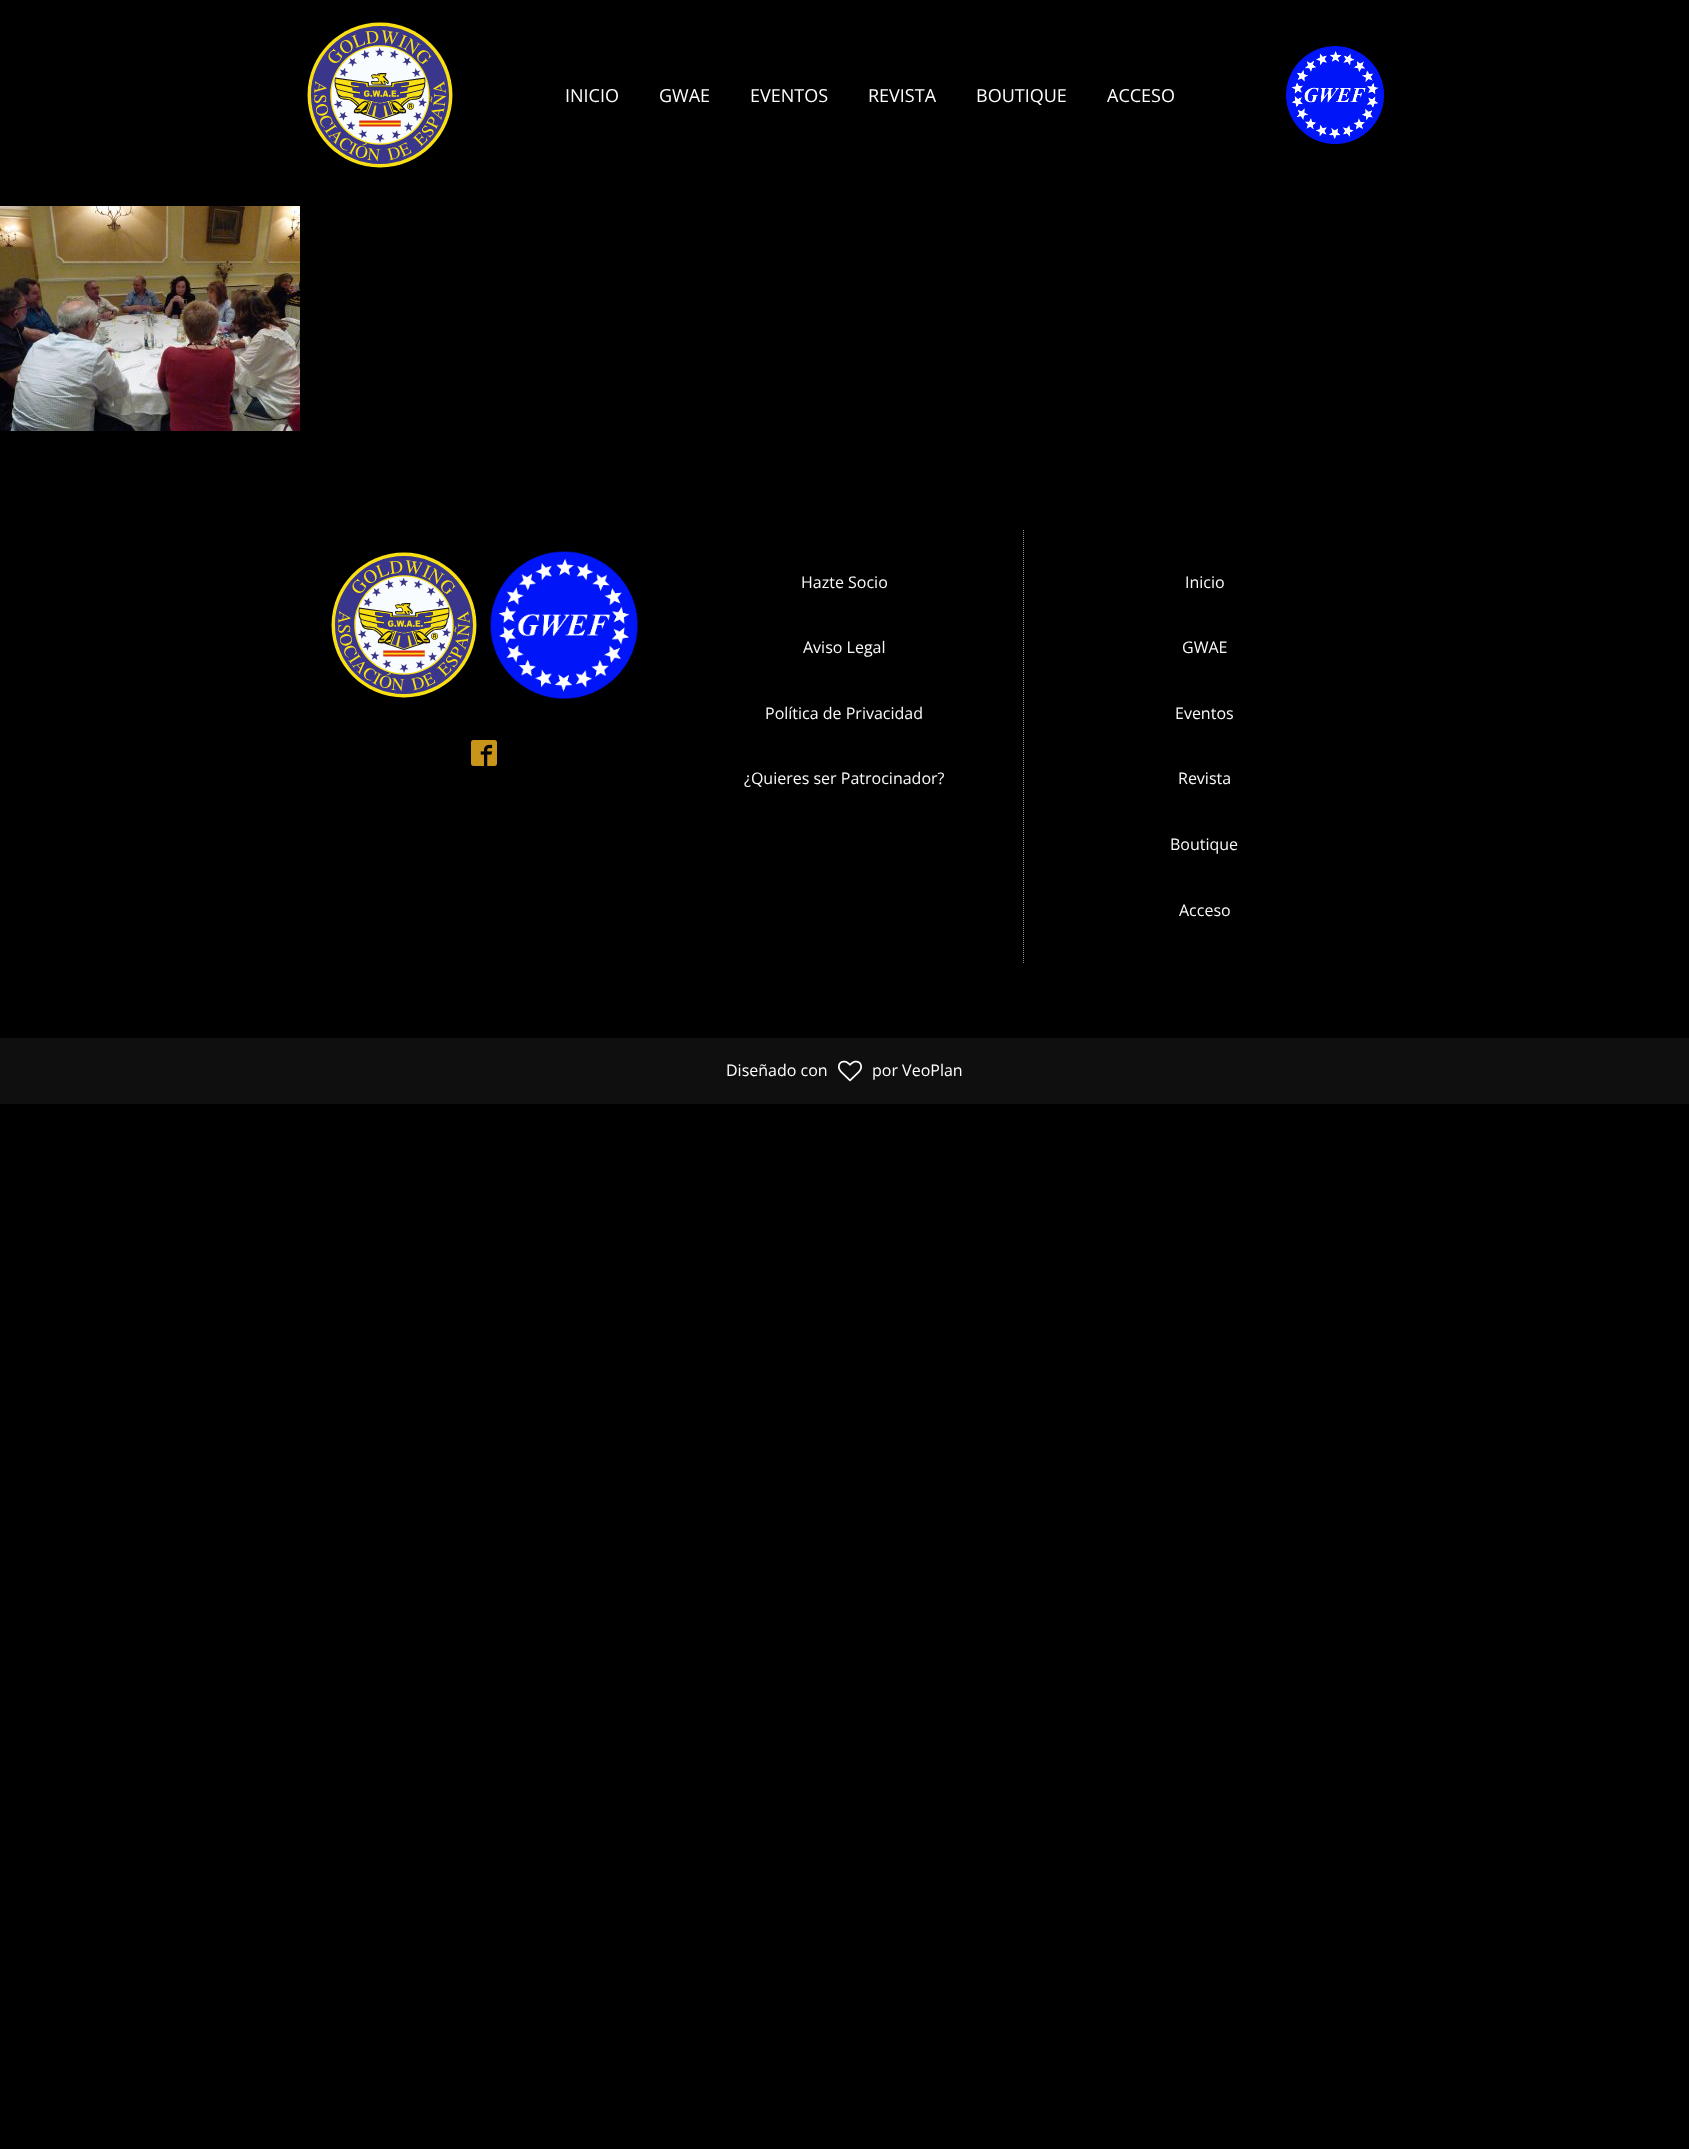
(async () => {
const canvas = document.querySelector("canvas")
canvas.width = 1689
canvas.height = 2149
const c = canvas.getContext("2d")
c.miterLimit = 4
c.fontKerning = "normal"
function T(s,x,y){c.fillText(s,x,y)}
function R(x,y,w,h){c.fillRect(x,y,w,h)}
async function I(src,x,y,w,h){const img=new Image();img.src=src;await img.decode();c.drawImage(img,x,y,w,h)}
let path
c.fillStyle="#000"
R(0,0,1689,2149)
await I("1.png",307,22,146,146)
c.font="18px Open Sans"
c.fillStyle="#fff"
T("INICIO",565,102)
T("GWAE",659,102)
T("EVENTOS",750,102)
T("REVISTA",868,102)
T("BOUTIQUE",976,102)
T("ACCESO",1107,102)
await I("2.png",1286,46,99,99)
await I("3.png",0,206,300,225)
await I("4.png",331,552,146,146)
await I("5.png",490,551,148,148)
await I("6.png",471,740,26,26)
path = new Path2D("M1023.5 530v433")
c.strokeStyle="#8e8e8e"
c.setLineDash([1,1])
c.stroke(path)
c.font="16px Open Sans"
c.fillStyle="#f9f9fa"
T("Hazte Socio",801,588)
T("Aviso Legal",803,653)
T("Política de Privacidad",765,719)
T("¿Quieres ser Patrocinador?",744,784)
T("Inicio",1185,588)
T("GWAE",1182,653)
T("Eventos",1175,719)
T("Revista",1178,784)
T("Boutique",1170,850)
T("Acceso",1179,916)
c.fillStyle="#0f0f0f"
R(0,1038,1689,66)
c.fillStyle="#fff"
T("Diseñado con",726,1076)
await I("7.png",838,1060,24,22)
T("por VeoPlan",872,1076)
})()
